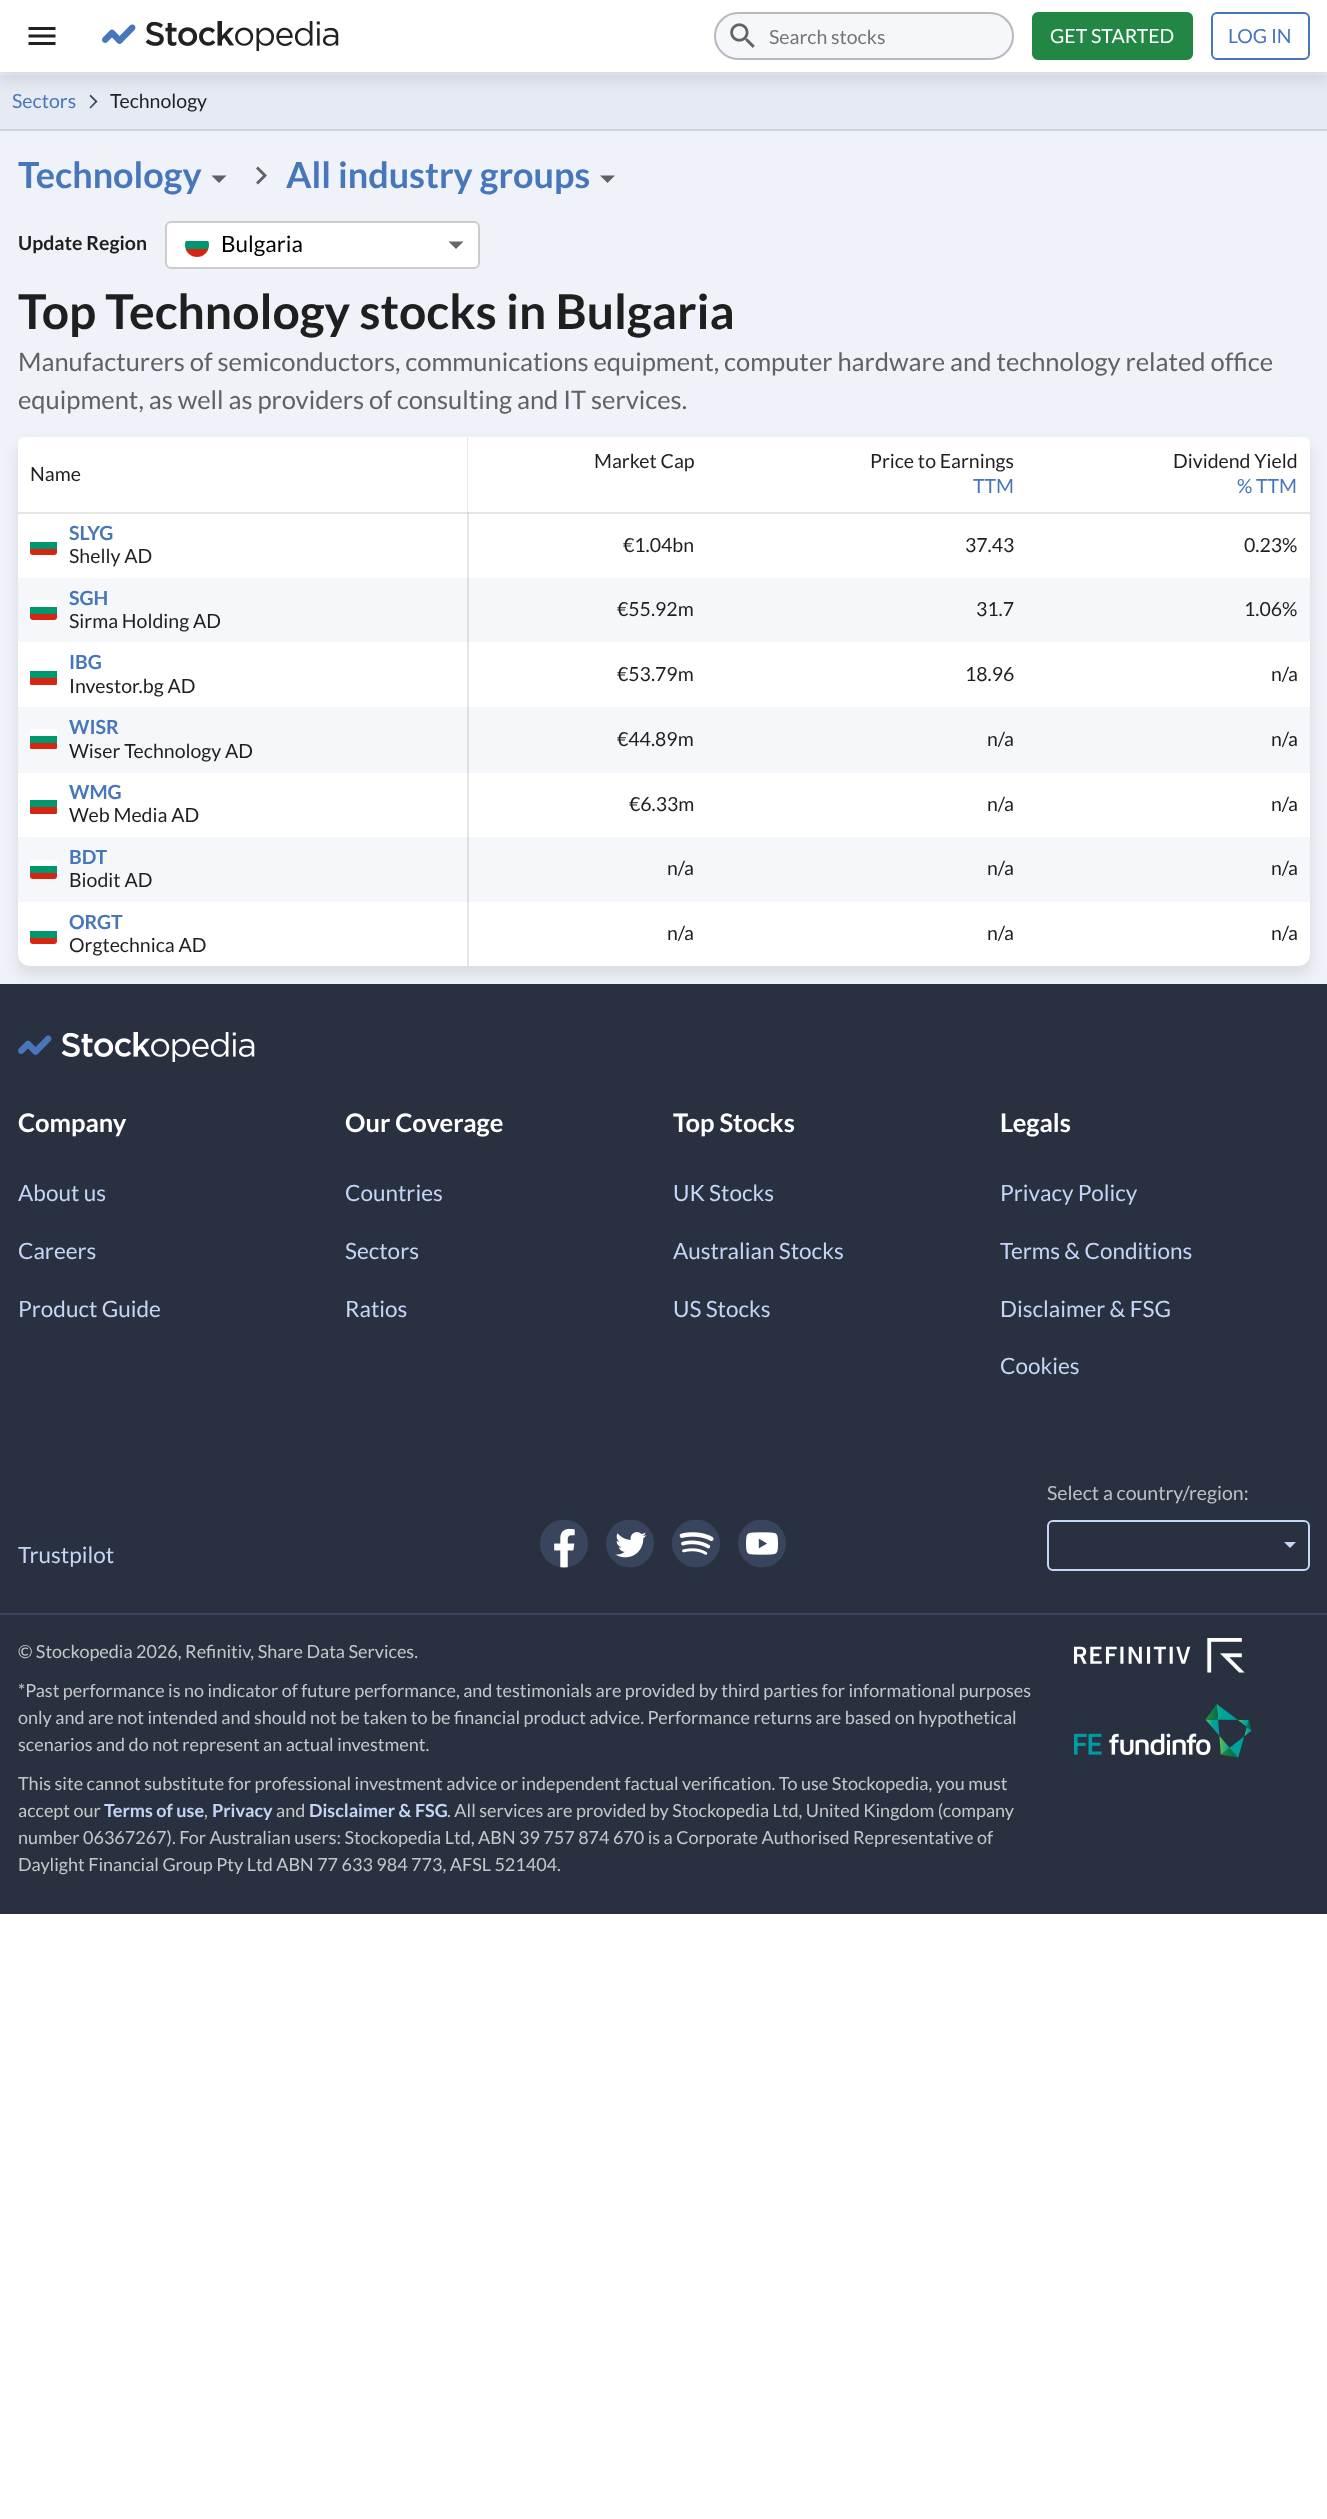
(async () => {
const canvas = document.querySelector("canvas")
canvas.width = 1327
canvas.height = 2519
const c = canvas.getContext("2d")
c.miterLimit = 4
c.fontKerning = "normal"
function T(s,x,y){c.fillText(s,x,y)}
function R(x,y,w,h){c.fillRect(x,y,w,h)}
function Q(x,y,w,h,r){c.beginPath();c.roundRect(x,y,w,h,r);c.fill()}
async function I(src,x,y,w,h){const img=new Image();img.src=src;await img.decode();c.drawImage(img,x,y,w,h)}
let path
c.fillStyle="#fff"
R(0,0,1327,2519)
c.fillStyle="#eff2f9"
R(0,72,1327,912)
c.fillStyle="#e6eaf3"
R(0,75,1327,54)
c.fillStyle="#39455d"
path = new Path2D("M90.5 94.5l7 7l-1.5 1l-6.5-6.5z")
c.fill(path)
path = new Path2D("M96 100.5l1.5 1l-7 7l-1-1z")
c.fill(path)
c.fillStyle="#0000001a"
c.filter="blur(7.5px)"
c.beginPath()
c.rect(0,8,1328,72)
c.fill()
c.filter="none"
c.fillStyle="#fff"
R(0,0,1327,72)
await I("1.png",28,27,28,18)
await I("2.png",102,21,237,30)
c.fillStyle="#f5f7fb"
Q(714,12,300,48,24)
c.beginPath()
c.roundRect(715,13,298,46,23)
c.strokeStyle="#00000040"
c.lineWidth=2
c.stroke()
await I("3.png",730,23,25,25)
c.font="19.5px Lato"
c.fillStyle="#757575"
T("Search stocks",769,44)
c.fillStyle="#228745"
c.beginPath()
c.roundRect(1033,13,159,46,5)
c.fill()
c.strokeStyle="#228745"
c.stroke()
c.fillStyle="#fff"
T("GET STARTED",1050,43)
c.beginPath()
c.roundRect(1212,13,97,46,5)
c.strokeStyle="#4776ba"
c.stroke()
c.fillStyle="#4776ba"
T("LOG IN",1228,43)
c.fillStyle="#cfd3db"
R(0,129,1327,2)
c.fillStyle="#4776ba"
T("Sectors",12,108)
c.fillStyle="#1f1f20"
T("Technology",110,108)
c.font="bold 36px Lato"
c.fillStyle="#4776ba"
T("Technology",18,188)
c.fillStyle="#606164"
path = new Path2D("M211.5 175.5l7.5 7.5l7.5-7.5z")
c.fill(path)
path = new Path2D("M258 166.5l-2 2l7 7l-7 7l2 2l9-9z")
c.fill(path)
c.fillStyle="#4776ba"
T("All industry groups",286,188)
c.fillStyle="#606164"
path = new Path2D("M600 175.5l7.5 7.5l7.5-7.5z")
c.fill(path)
c.font="bold 19.5px Lato"
c.fillStyle="#1f1f20"
T("Update Region",18,250)
c.fillStyle="#fff"
Q(165,221,315,48,6)
c.beginPath()
c.roundRect(166,222,313,46,5)
c.strokeStyle="#00000033"
c.stroke()
c.save()
c.beginPath()
c.roundRect(185,233,24,24,12)
c.clip()
c.fillStyle="#d62612"
R(185,249,24,8)
c.fillStyle="#00966e"
R(185,241,24,8)
c.restore()
c.font="22.5px Lato"
c.fillStyle="#000"
T("Bulgaria",221,252)
c.fillStyle="#666"
path = new Path2D("M448.5 241.5l7.5 7.5l7.5-7.5z")
c.fill(path)
c.font="bold 48px Lato"
c.fillStyle="#1f1f20"
T("Top Technology stocks in Bulgaria",18,329)
c.font="25.5px Lato"
c.fillStyle="#606164"
T("Manufacturers of semiconductors, communications equipment, computer hardware and technology related office",18,371)
T("equipment, as well as providers of consulting and IT services.",18,409)
c.fillStyle="#0000001a"
c.filter="blur(7.5px)"
c.beginPath()
c.roundRect(18,444,1292,530,12)
c.fill()
c.filter="none"
c.fillStyle="#fff"
Q(18,437,1292,529,12)
c.fillStyle="#e6e6e6"
R(18,513,689,1)
c.fillStyle="#fff"
c.beginPath()
c.roundRect(18,437,450,76,[6,0,0,0])
c.fill()
c.fillStyle="#e6e6e6"
R(18,512,689,1)
R(467,437,1,76)
c.fillStyle="#cfcfcf"
R(467,512,1,1)
c.font="19.5px Lato"
c.fillStyle="#1f1f20"
T("Name",30,481)
T("Market Cap",594,468)
c.fillStyle="#e6e6e6"
R(707,512,319,2)
c.fillStyle="#1f1f20"
T("Price to Earnings",870,468)
c.fillStyle="#4776ba"
T("TTM",973,493)
c.fillStyle="#fff"
c.beginPath()
c.roundRect(1026,437,284,76,[0,6,0,0])
c.fill()
c.fillStyle="#e6e6e6"
R(1026,512,284,2)
c.fillStyle="#1f1f20"
T("Dividend Yield",1173,468)
c.fillStyle="#4776ba"
T("% TTM",1237,493)
c.fillStyle="#e6e6e6"
R(467,513,2,65)
c.fillStyle="#cfcfcf"
R(467,513,2,1)
c.fillStyle="#d62612"
c.beginPath()
c.roundRect(30,549,27,6,[0,0,3,3])
c.fill()
c.fillStyle="#00966e"
R(30,542,27,7)
c.font="bold 19.5px Lato"
c.fillStyle="#4776ba"
T("SLYG",69,540)
c.font="19.5px Lato"
c.fillStyle="#1f1f20"
T("Shelly AD",69,563)
T("€1.04bn",623,552)
T("37.43",965,552)
T("0.23%",1244,552)
c.fillStyle="#f5f7fb"
R(18,578,1292,64)
c.fillStyle="#dddee2"
R(467,578,2,64)
c.fillStyle="#d62612"
c.beginPath()
c.roundRect(30,614,27,6,[0,0,3,3])
c.fill()
c.fillStyle="#fff"
c.beginPath()
c.roundRect(30,600,27,7,[3,3,0,0])
c.fill()
c.fillStyle="#00966e"
R(30,607,27,7)
c.font="bold 19.5px Lato"
c.fillStyle="#4776ba"
T("SGH",69,605)
c.font="19.5px Lato"
c.fillStyle="#1f1f20"
T("Sirma Holding AD",69,628)
T("€55.92m",617,616)
T("31.7",976,616)
T("1.06%",1244,616)
c.fillStyle="#e6e6e6"
R(467,642,2,65)
c.save()
c.beginPath()
c.roundRect(30,665,27,21,3)
c.clip()
c.fillStyle="#d62612"
R(30,678,27,7)
c.restore()
c.fillStyle="#00966e"
R(30,671,27,7)
c.font="bold 19.5px Lato"
c.fillStyle="#4776ba"
T("IBG",69,669)
c.font="19.5px Lato"
c.fillStyle="#1f1f20"
T("Investor.bg AD",69,693)
T("€53.79m",617,681)
T("18.96",965,681)
T("n/a",1271,681)
c.fillStyle="#f5f7fb"
R(18,707,1292,66)
c.fillStyle="#dddee2"
R(467,707,2,66)
c.save()
c.beginPath()
c.roundRect(30,729,27,21,3)
c.clip()
c.fillStyle="#d62612"
R(30,743,27,6)
c.restore()
c.fillStyle="#fff"
c.beginPath()
c.roundRect(30,729,27,7,[3,3,0,0])
c.fill()
c.fillStyle="#00966e"
R(30,736,27,7)
c.font="bold 19.5px Lato"
c.fillStyle="#4776ba"
T("WISR",69,734)
c.font="19.5px Lato"
c.fillStyle="#1f1f20"
T("Wiser Technology AD",69,758)
T("€44.89m",617,746)
T("n/a",987,746)
T("n/a",1271,746)
c.fillStyle="#e6e6e6"
R(467,773,2,64)
c.save()
c.beginPath()
c.roundRect(30,794,27,21,3)
c.clip()
c.fillStyle="#d62612"
R(30,807,27,7)
c.restore()
c.fillStyle="#00966e"
R(30,800,27,7)
c.font="bold 19.5px Lato"
c.fillStyle="#4776ba"
T("WMG",69,799)
c.font="19.5px Lato"
c.fillStyle="#1f1f20"
T("Web Media AD",69,822)
T("€6.33m",629,811)
T("n/a",987,811)
T("n/a",1271,811)
c.fillStyle="#f5f7fb"
R(18,837,1292,65)
c.fillStyle="#dddee2"
R(467,837,2,65)
c.fillStyle="#d62612"
c.beginPath()
c.roundRect(30,873,27,6,[0,0,3,3])
c.fill()
c.fillStyle="#fff"
c.beginPath()
c.roundRect(30,860,27,6,[3,3,0,0])
c.fill()
c.fillStyle="#00966e"
R(30,866,27,7)
c.font="bold 19.5px Lato"
c.fillStyle="#4776ba"
T("BDT",69,864)
c.font="19.5px Lato"
c.fillStyle="#1f1f20"
T("Biodit AD",69,887)
T("n/a",667,875)
T("n/a",987,875)
T("n/a",1271,875)
c.fillStyle="#e6e6e6"
R(467,902,2,64)
c.fillStyle="#d62612"
c.beginPath()
c.roundRect(30,938,27,6,[0,0,3,3])
c.fill()
c.fillStyle="#00966e"
R(30,931,27,7)
c.font="bold 19.5px Lato"
c.fillStyle="#4776ba"
T("ORGT",69,929)
c.font="19.5px Lato"
c.fillStyle="#1f1f20"
T("Orgtechnica AD",69,952)
T("n/a",667,940)
T("n/a",987,940)
T("n/a",1271,940)
c.fillStyle="#293140"
R(0,984,1327,930)
await I("4.png",18,1032,237,30)
c.font="bold 25.5px Lato"
c.fillStyle="#fff"
T("Company",18,1132)
c.font="22.5px Lato"
c.fillStyle="#c3d6f5"
T("About us",18,1201)
T("Careers",18,1259)
T("Product Guide",18,1317)
c.font="bold 25.5px Lato"
c.fillStyle="#fff"
T("Our Coverage",345,1132)
c.font="22.5px Lato"
c.fillStyle="#c3d6f5"
T("Countries",345,1201)
T("Sectors",345,1259)
T("Ratios",345,1317)
c.font="bold 25.5px Lato"
c.fillStyle="#fff"
T("Top Stocks",673,1132)
c.font="22.5px Lato"
c.fillStyle="#c3d6f5"
T("UK Stocks",673,1201)
T("Australian Stocks",673,1259)
T("US Stocks",673,1317)
c.font="bold 25.5px Lato"
c.fillStyle="#fff"
T("Legals",1000,1132)
c.font="22.5px Lato"
c.fillStyle="#c3d6f5"
T("Privacy Policy",1000,1201)
T("Terms & Conditions",1000,1259)
T("Disclaimer & FSG",1000,1317)
T("Cookies",1000,1374)
c.font="19.5px Lato"
c.fillStyle="#bfc1c6"
T("Select a country/region:",1047,1500)
c.beginPath()
c.roundRect(1048,1521,261,49,5)
c.strokeStyle="#c3d6f5"
c.stroke()
c.fillStyle="#c3d6f5"
path = new Path2D("M1284 1542h12l-6 6z")
c.fill(path)
c.font="22.5px Lato"
T("Trustpilot",18,1563)
await I("5.png",540,1520,48,48)
await I("6.png",606,1520,48,48)
await I("7.png",672,1520,48,48)
await I("8.png",738,1520,48,48)
c.fillStyle="#39455d"
R(0,1613,1327,2)
c.font="18px Lato"
c.fillStyle="#c5c7cb"
T("© Stockopedia 2026, Refinitiv, Share Data Services.",18,1658)
T("*Past performance is no indicator of future performance, and testimonials are provided by third parties for informational purposes",18,1697)
T("only and are not intended and should not be taken to be financial product advice. Performance returns are based on hypothetical",18,1724)
T("scenarios and do not represent an actual investment.",18,1751)
T("This site cannot substitute for professional investment advice or independent factual verification. To use Stockopedia, you must",18,1790)
T("accept our",18,1817)
c.font="bold 18px Lato"
c.fillStyle="#c3d6f5"
T("Terms of use",104,1817)
c.font="18px Lato"
c.fillStyle="#c5c7cb"
T(",",204,1817)
c.font="bold 18px Lato"
c.fillStyle="#c3d6f5"
T("Privacy",212,1817)
c.font="18px Lato"
c.fillStyle="#c5c7cb"
T("and",276,1817)
c.font="bold 18px Lato"
c.fillStyle="#c3d6f5"
T("Disclaimer & FSG",309,1817)
c.font="18px Lato"
c.fillStyle="#c5c7cb"
T(". All services are provided by Stockopedia Ltd, United Kingdom (company",447,1817)
T("number 06367267). For Australian users: Stockopedia Ltd, ABN 39 757 874 670 is a Corporate Authorised Representative of",18,1844)
T("Daylight Financial Group Pty Ltd ABN 77 633 984 773, AFSL 521404.",18,1871)
await I("9.png",1074,1638,171,35)
await I("10.png",1074,1704,178,54)
})()
